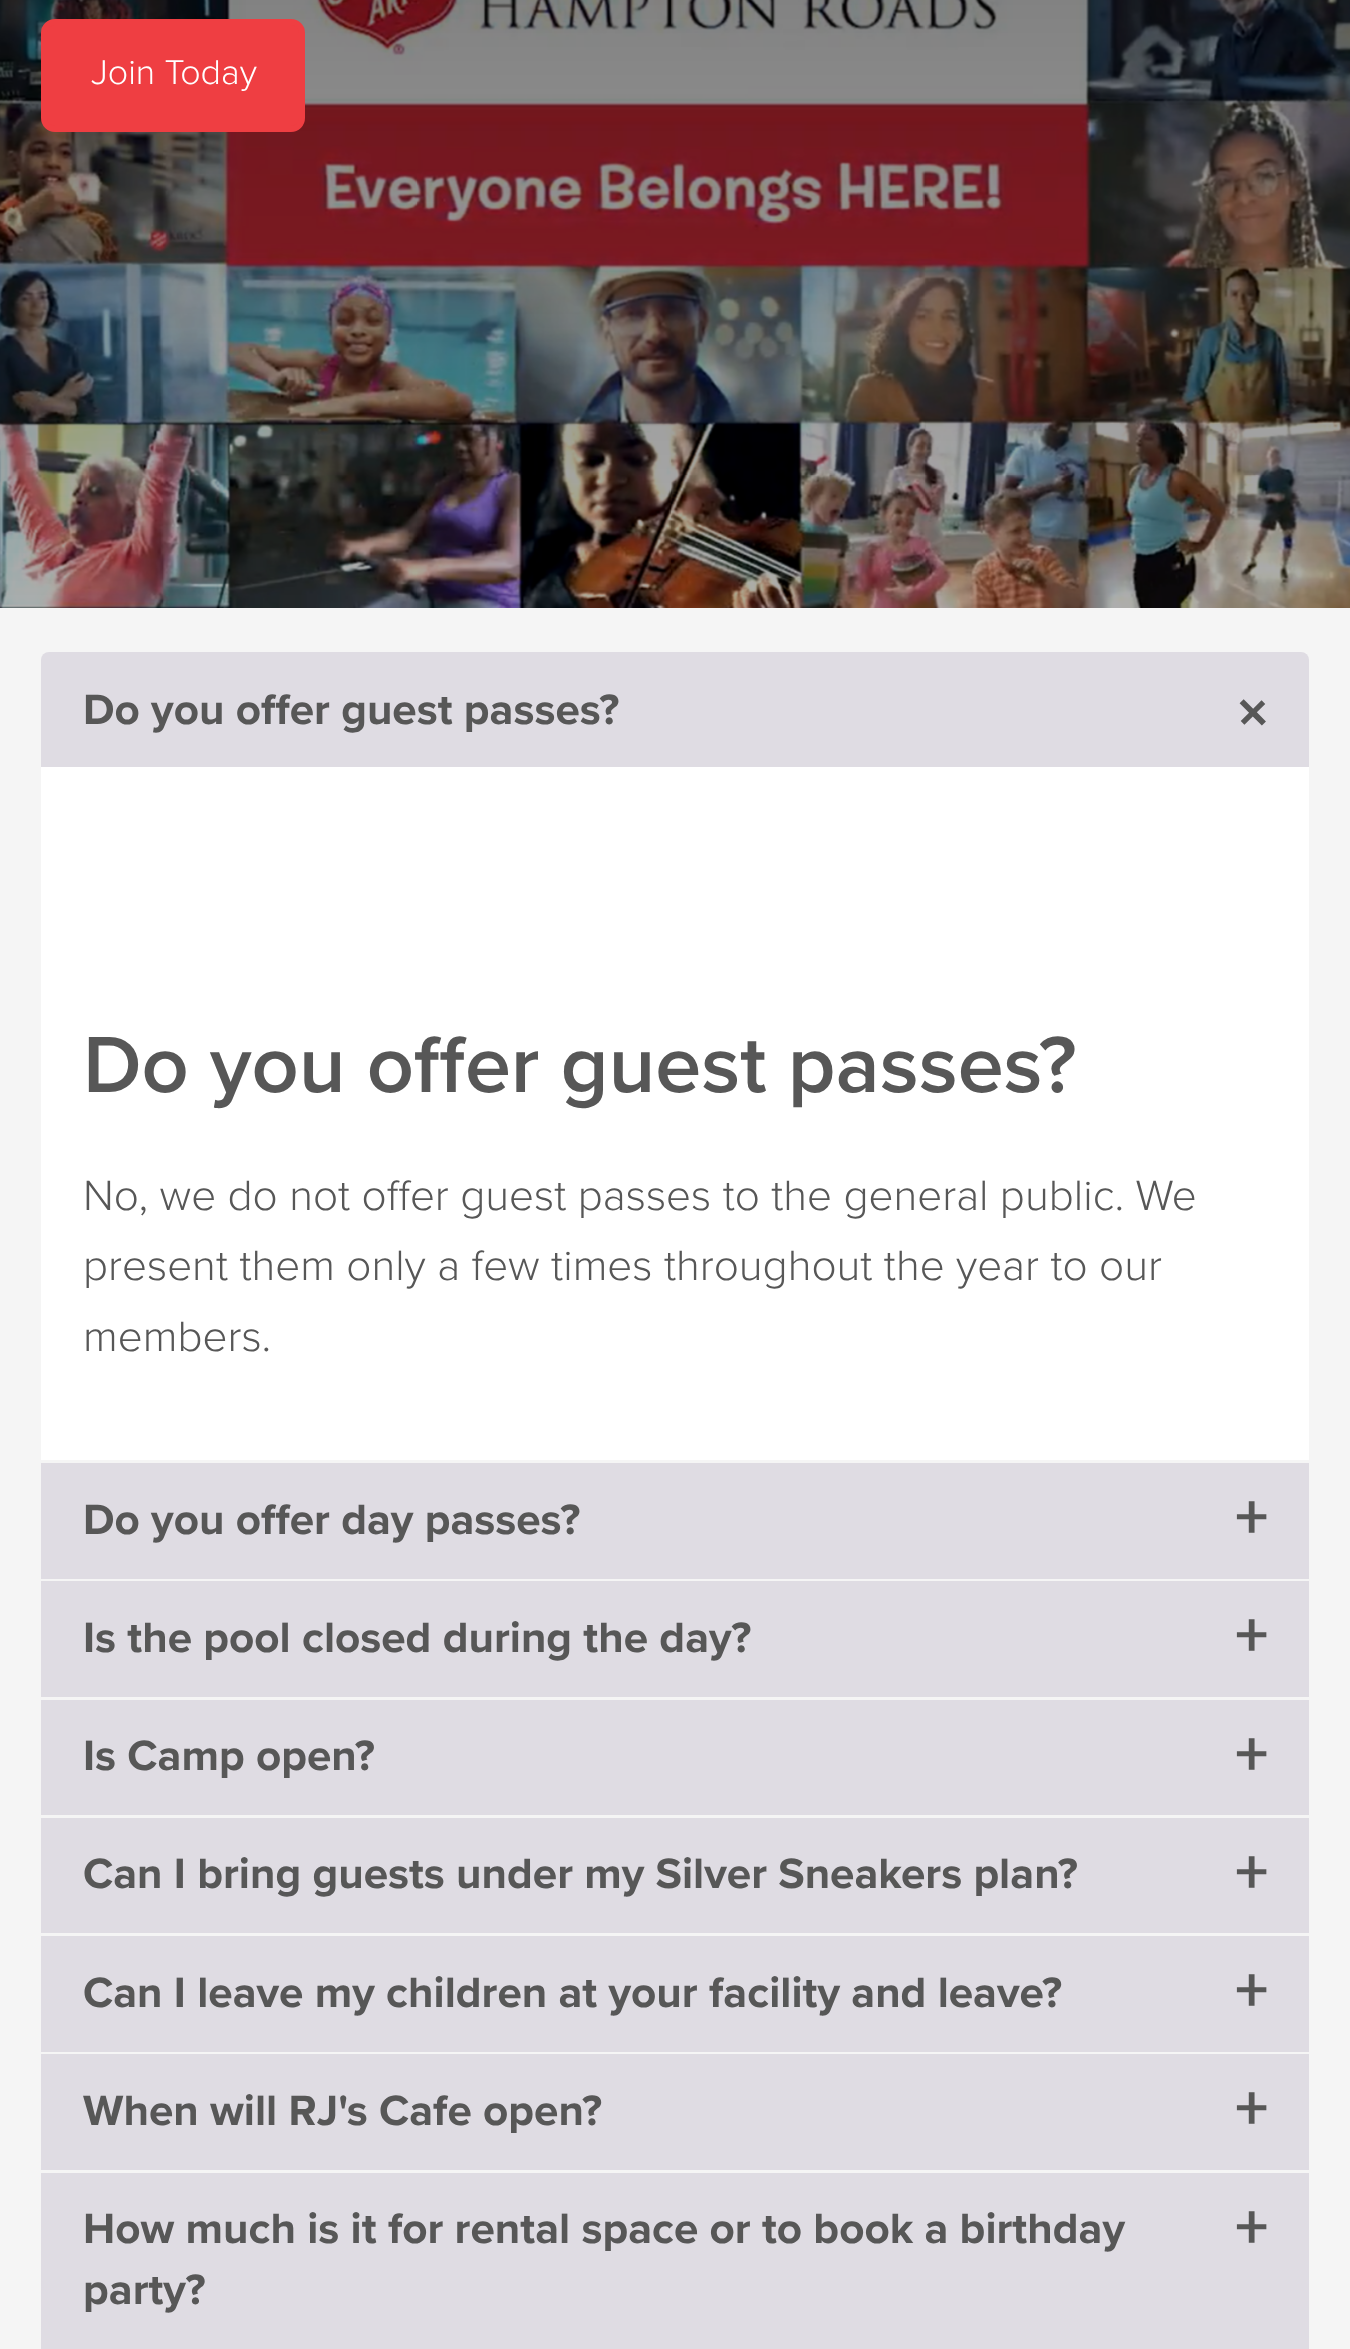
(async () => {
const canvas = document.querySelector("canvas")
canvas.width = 1350
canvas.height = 2349
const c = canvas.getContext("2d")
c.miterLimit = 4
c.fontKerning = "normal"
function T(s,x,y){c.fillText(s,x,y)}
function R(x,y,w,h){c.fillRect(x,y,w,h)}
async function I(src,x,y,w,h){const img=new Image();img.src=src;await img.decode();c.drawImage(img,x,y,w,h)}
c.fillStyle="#f5f5f5"
R(0,0,1350,2349)
await I("1.png",0,0,1350,608)
c.fillStyle="#ef3e42"
c.beginPath()
c.roundRect(44,22,258,107,11)
c.fill()
c.strokeStyle="#ef3e42"
c.lineWidth=6
c.stroke()
c.font="300 35.75px Proxima Nova"
c.fillStyle="#fff"
T("Join Today",91,84)
c.fillStyle="#dfdce3"
c.beginPath()
c.roundRect(41,652,1268,115,[8,8,0,0])
c.fill()
c.font="bold 44px Proxima Nova"
c.fillStyle="#575757"
T("Do you offer guest passes?",83,724)
c.font="bold 66px Proxima Nova"
c.save()
c.translate(1249,685)
c.rotate(135 * Math.PI / 180)
c.fillText("+",0,0)
c.restore()
c.fillStyle="#fff"
R(41,767,1268,693)
c.font="600 82.5px Proxima Nova"
c.fillStyle="#575757"
T("Do you offer guest passes?",83,1092)
c.font="300 44px Proxima Nova"
T("No, we do not offer guest passes to the general public. We",83,1210)
T("present them only a few times throughout the year to our",83,1280)
T("members.",83,1351)
c.fillStyle="#dfdce3"
R(41,1463,1268,116)
c.font="bold 44px Proxima Nova"
c.fillStyle="#575757"
T("Do you offer day passes?",83,1534)
c.font="bold 66px Proxima Nova"
T("+",1235,1539)
c.fillStyle="#dfdce3"
R(41,1581,1268,116)
c.font="bold 44px Proxima Nova"
c.fillStyle="#575757"
T("Is the pool closed during the day?",83,1652)
c.font="bold 66px Proxima Nova"
T("+",1235,1657)
c.fillStyle="#dfdce3"
R(41,1700,1268,115)
c.font="bold 44px Proxima Nova"
c.fillStyle="#575757"
T("Is Camp open?",83,1770)
c.font="bold 66px Proxima Nova"
T("+",1235,1776)
c.fillStyle="#dfdce3"
R(41,1818,1268,115)
c.font="bold 44px Proxima Nova"
c.fillStyle="#575757"
T("Can I bring guests under my Silver Sneakers plan?",83,1888)
c.font="bold 66px Proxima Nova"
T("+",1235,1894)
c.fillStyle="#dfdce3"
R(41,1936,1268,116)
c.font="bold 44px Proxima Nova"
c.fillStyle="#575757"
T("Can I leave my children at your facility and leave?",83,2007)
c.font="bold 66px Proxima Nova"
T("+",1235,2012)
c.fillStyle="#dfdce3"
R(41,2054,1268,116)
c.font="bold 44px Proxima Nova"
c.fillStyle="#575757"
T("When will RJ's Cafe open?",83,2125)
c.font="bold 66px Proxima Nova"
T("+",1235,2130)
c.fillStyle="#dfdce3"
R(41,2173,1268,176)
c.font="bold 44px Proxima Nova"
c.fillStyle="#575757"
T("How much is it for rental space or to book a birthday",83,2243)
c.font="bold 66px Proxima Nova"
T("+",1235,2249)
c.font="bold 44px Proxima Nova"
T("party?",83,2304)
})()
